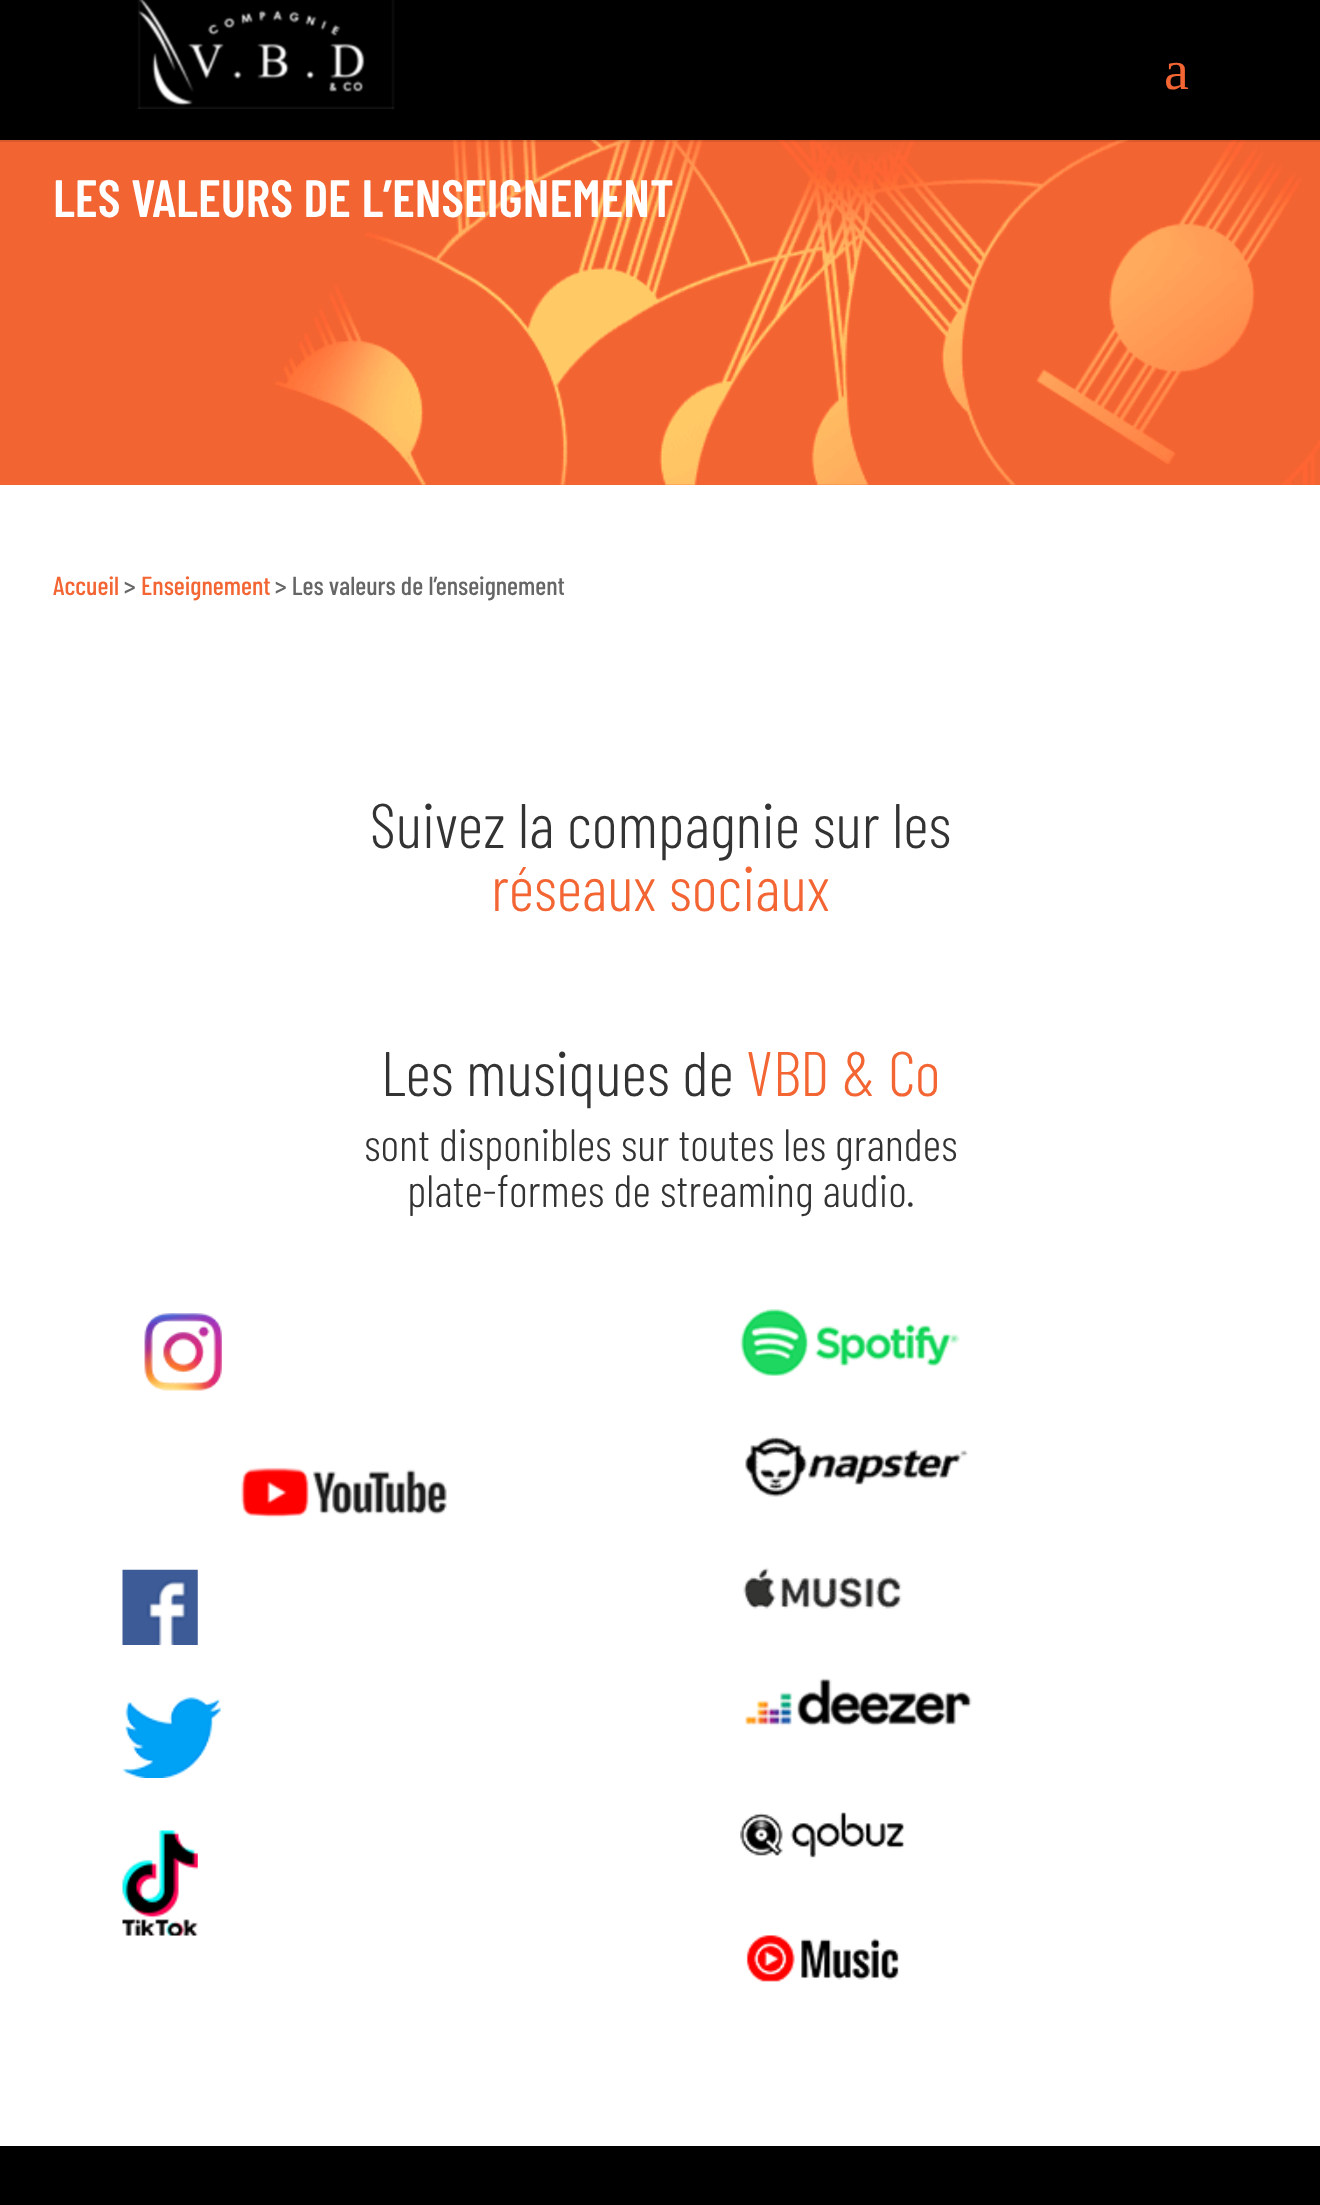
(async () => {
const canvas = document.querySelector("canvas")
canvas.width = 1320
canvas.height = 2205
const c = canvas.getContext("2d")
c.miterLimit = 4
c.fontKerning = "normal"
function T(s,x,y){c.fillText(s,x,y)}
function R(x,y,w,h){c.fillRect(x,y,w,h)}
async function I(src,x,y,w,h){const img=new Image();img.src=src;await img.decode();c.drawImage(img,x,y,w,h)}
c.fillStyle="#fff"
R(0,0,1320,2205)
c.fillStyle="#f26432"
R(0,140,1320,345)
await I("2.png",275,140,1045,345)
c.fillStyle="#0000001a"
R(0,140,1320,2)
c.fillStyle="#000"
R(0,0,1320,140)
await I("1.png",137,0,258,109)
c.font="56px Liberation Serif"
c.fillStyle="#f36533"
T("a",1164,89)
c.font="600 52.5px Barlow Condensed"
c.fillStyle="#fff"
T("LES VALEURS DE L’ENSEIGNEMENT",53,217)
c.font="500 26.25px Barlow Condensed"
c.fillStyle="#f36533"
T("Accueil",53,595)
c.fillStyle="#666"
T(">",124,595)
c.fillStyle="#f36533"
T("Enseignement",141,595)
c.fillStyle="#666"
T("> Les valeurs de l’enseignement",275,595)
c.font="300 63px Barlow Condensed"
c.fillStyle="#333"
T("Suivez la compagnie sur les",370,848)
c.fillStyle="#f36533"
T("réseaux sociaux",491,911)
c.fillStyle="#333"
T("Les musiques de",381,1096)
c.fillStyle="#f36533"
T("VBD & Co",746,1096)
c.font="300 45.5px Barlow Condensed"
c.fillStyle="#333"
T("sont disponibles sur toutes les grandes",364,1161)
T("plate-formes de streaming audio.",407,1207)
await I("3.png",144,1313,78,78)
await I("4.png",241,1467,206,51)
await I("5.png",122,1569,76,76)
await I("6.png",122,1697,99,81)
await I("7.png",122,1830,76,106)
await I("8.png",740,1309,220,68)
await I("9.png",745,1436,223,61)
await I("10.png",743,1567,159,42)
await I("11.png",745,1678,227,48)
await I("12.png",740,1812,165,46)
await I("13.png",746,1935,153,47)
c.fillStyle="#000"
R(0,2146,1320,59)
})()
